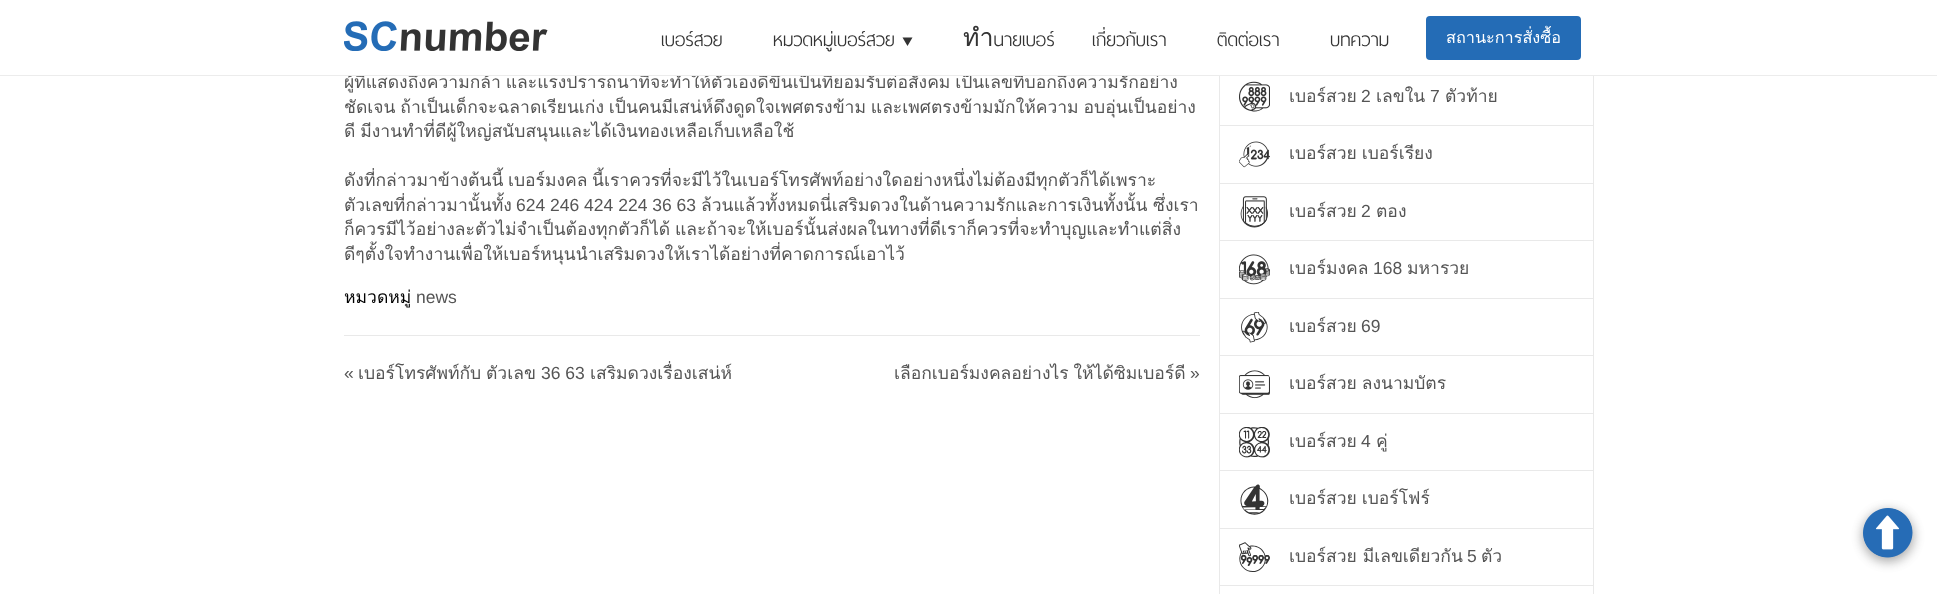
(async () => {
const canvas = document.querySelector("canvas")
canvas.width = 1937
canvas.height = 594
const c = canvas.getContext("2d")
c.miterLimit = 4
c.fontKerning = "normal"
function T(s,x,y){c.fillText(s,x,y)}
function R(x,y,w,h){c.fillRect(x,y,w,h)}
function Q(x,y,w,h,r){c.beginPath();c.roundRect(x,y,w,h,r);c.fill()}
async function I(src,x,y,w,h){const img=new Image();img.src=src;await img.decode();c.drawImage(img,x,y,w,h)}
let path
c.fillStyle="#fff"
R(0,0,1937,594)
c.wordSpacing="-1px"
c.font="17.5px Loma"
c.fillStyle="#555"
T("ผู้ที่แสดงถึงความกล้า และแรงปรารถนาที่จะทำให้ตัวเองดีขึ้นเป็นที่ยอมรับต่อสังคม เป็นเลขที่บอกถึงความรักอย่าง",344,88)
c.strokeStyle="#e9e9e9"
c.strokeRect(1219.5,-.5,374,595)
c.fillStyle="#fff"
R(336,0,1258,75)
c.fillStyle="#ececec"
R(0,75,1937,1)
await I("1.png",344,21,204,30)
c.wordSpacing="0px"
c.font="300 25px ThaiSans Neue"
c.fillStyle="#333"
T("เบอร์สวย",661,46)
T("หมวดหมู่เบอร์สวย",773,46)
path = new Path2D("M902.5 37.5h10l-5 8.5z")
c.fill(path)
T("ทำนายเบอร์",963,46)
T("เกี่ยวกับเรา",1092,46)
T("ติดต่อเรา",1217,46)
T("บทความ",1330,46)
c.fillStyle="#246cb6"
Q(1426,16,155,44,4)
c.font="16.25px Loma"
c.fillStyle="#fff"
T("สถานะการสั่งซื้อ",1446,43)
c.wordSpacing="-1px"
c.font="17.5px Loma"
c.fillStyle="#555"
T("ชัดเจน ถ้าเป็นเด็กจะฉลาดเรียนเก่ง เป็นคนมีเสน่ห์ดึงดูดใจเพศตรงข้าม และเพศตรงข้ามมักให้ความ อบอุ่นเป็นอย่าง",344,113)
T("ดี มีงานทำที่ดีผู้ใหญ่สนับสนุนและได้เงินทองเหลือเก็บเหลือใช้",344,137)
c.wordSpacing="0px"
T("ดังที่กล่าวมาข้างต้นนี้",344,186)
T("เบอร์มงคล",508,186)
T("นี้เราควรที่จะมีไว้ในเบอร์โทรศัพท์อย่างใดอย่างหนึ่งไม่ต้องมีทุกตัวก็ได้เพราะ",592,186)
T("ตัวเลขที่กล่าวมานั้นทั้ง",344,211)
c.font="17.5px Liberation Sans"
T("624 246 424 224 36 63",516,211)
c.font="17.5px Loma"
T("ล้วนแล้วทั้งหมดนี่เสริมดวงในด้านความรักและการเงินทั้งนั้น",701,211)
T("ซึ่งเรา",1153,211)
c.wordSpacing="-1px"
T("ก็ควรมีไว้อย่างละตัวไม่จำเป็นต้องทุกตัวก็ได้ และถ้าจะให้เบอร์นั้นส่งผลในทางที่ดีเราก็ควรที่จะทำบุญและทำแต่สิ่ง",344,235)
c.wordSpacing="0px"
T("ดีๆตั้งใจทำงานเพื่อให้เบอร์หนุนนำเสริมดวงให้เราได้อย่างที่คาดการณ์เอาไว้",344,260)
c.fillStyle="#e9e9e9"
R(344,335,856,1)
c.fillStyle="#000"
T("หมวดหมู่",344,303)
c.font="17.5px Liberation Sans"
c.fillStyle="#555"
T("news",416,303)
T("«",344,379)
c.font="17.5px Loma"
T("เบอร์โทรศัพท์กับ",358,379)
T("ตัวเลข",486,379)
c.font="17.5px Liberation Sans"
T("36 63",541,379)
c.font="17.5px Loma"
T("เสริมดวงเรื่องเสน่ห์",590,379)
c.wordSpacing="-1px"
T("เลือกเบอร์มงคลอย่างไร ให้ได้ซิมเบอร์ดี",894,379)
c.wordSpacing="0px"
c.font="17.5px Liberation Sans"
T("»",1190,379)
c.fillStyle="#e9e9e9"
R(1220,125,373,1)
await I("2.png",1239,81,31,31)
c.font="17.5px Loma"
c.fillStyle="#555"
T("เบอร์สวย",1289,102)
c.font="17.5px Liberation Sans"
T("2",1361,102)
c.font="17.5px Loma"
T("เลขใน",1376,102)
c.font="17.5px Liberation Sans"
T("7",1430,102)
c.font="17.5px Loma"
T("ตัวท้าย",1445,102)
c.fillStyle="#e9e9e9"
R(1220,183,373,1)
await I("3.png",1239,141,31,27)
c.wordSpacing="-1px"
c.fillStyle="#555"
T("เบอร์สวย เบอร์เรียง",1289,159)
c.fillStyle="#e9e9e9"
R(1220,240,373,1)
await I("4.png",1240,196,28,32)
c.wordSpacing="0px"
c.fillStyle="#555"
T("เบอร์สวย",1289,217)
c.font="17.5px Liberation Sans"
T("2",1361,217)
c.font="17.5px Loma"
T("ตอง",1376,217)
c.fillStyle="#e9e9e9"
R(1220,298,373,1)
await I("5.png",1239,254,31,31)
c.fillStyle="#555"
T("เบอร์มงคล",1289,274)
c.font="17.5px Liberation Sans"
T("168",1373,274)
c.font="17.5px Loma"
T("มหารวย",1407,274)
c.fillStyle="#e9e9e9"
R(1220,355,373,1)
await I("6.png",1241,312,27,31)
c.fillStyle="#555"
T("เบอร์สวย",1289,332)
c.font="17.5px Liberation Sans"
T("69",1361,332)
c.fillStyle="#e9e9e9"
R(1220,413,373,1)
await I("7.png",1239,370,31,29)
c.wordSpacing="-1px"
c.font="17.5px Loma"
c.fillStyle="#555"
T("เบอร์สวย ลงนามบัตร",1289,389)
c.fillStyle="#e9e9e9"
R(1220,470,373,1)
await I("8.png",1239,427,31,31)
c.wordSpacing="0px"
c.fillStyle="#555"
T("เบอร์สวย",1289,447)
c.font="17.5px Liberation Sans"
T("4",1361,447)
c.font="17.5px Loma"
T("คู่",1376,447)
c.fillStyle="#e9e9e9"
R(1220,528,373,1)
await I("9.png",1240,484,29,31)
c.wordSpacing="-1px"
c.fillStyle="#555"
T("เบอร์สวย เบอร์โฟร์",1289,504)
c.fillStyle="#e9e9e9"
R(1220,585,373,1)
await I("10.png",1239,542,31,30)
c.wordSpacing="0px"
c.fillStyle="#555"
T("เบอร์สวย มีเลขเดียวกัน",1289,562)
c.font="17.5px Liberation Sans"
T("5",1467,562)
c.font="17.5px Loma"
T("ตัว",1481,562)
c.fillStyle="#00000029"
c.filter="blur(6px)"
c.beginPath()
c.roundRect(1863,511,50,50,25)
c.fill()
c.filter="none"
c.fillStyle="#0000003b"
c.filter="blur(6px)"
c.beginPath()
c.roundRect(1863,511,50,50,25)
c.fill()
c.filter="none"
await I("11.png",1863,508,50,50)
})()
